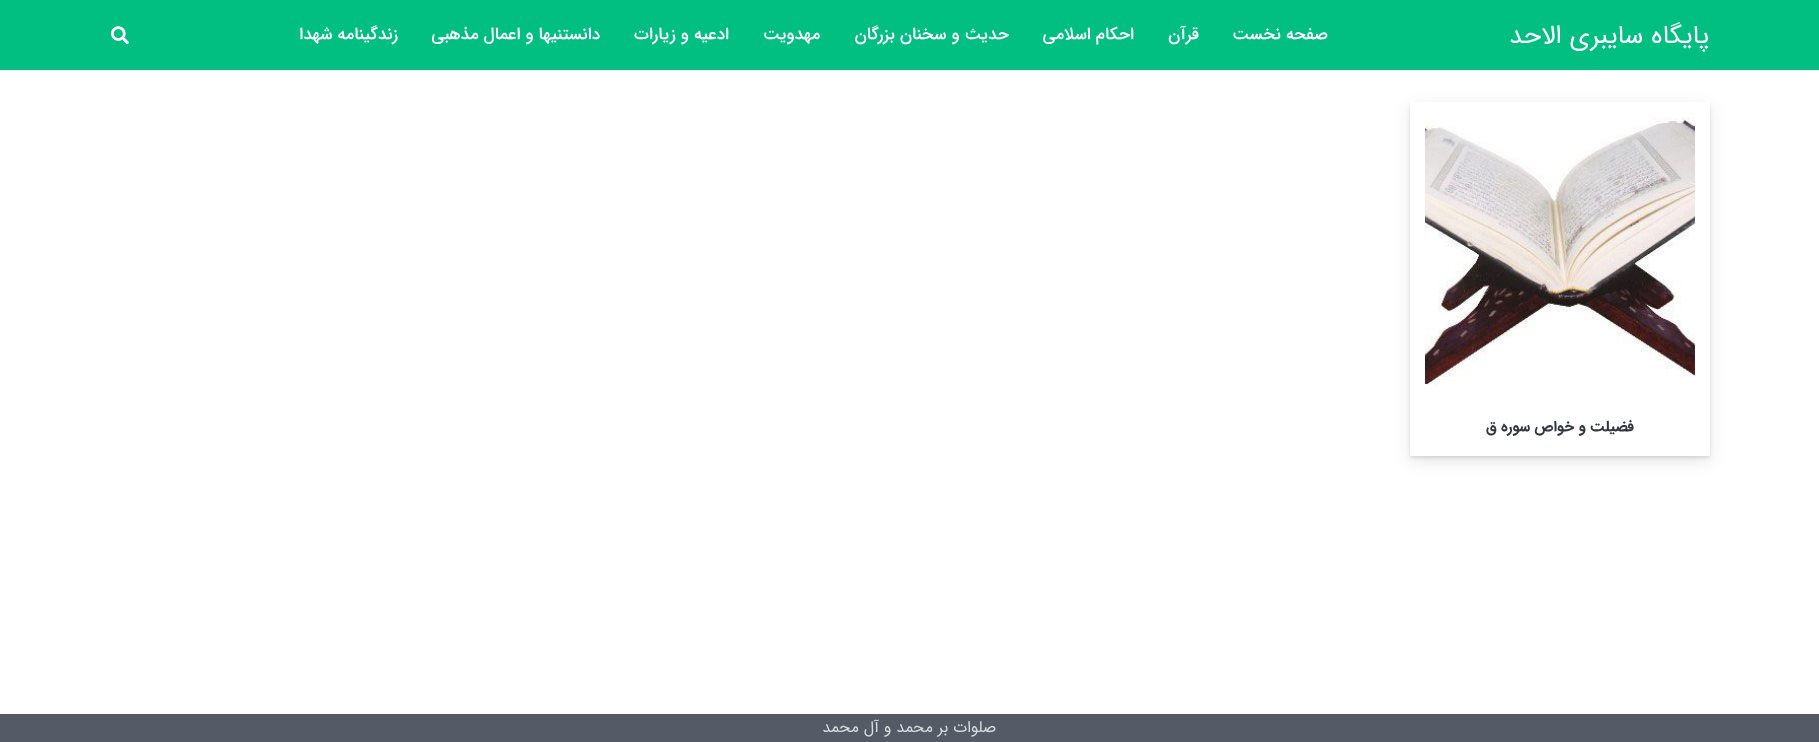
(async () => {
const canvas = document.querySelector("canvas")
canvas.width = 1819
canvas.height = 742
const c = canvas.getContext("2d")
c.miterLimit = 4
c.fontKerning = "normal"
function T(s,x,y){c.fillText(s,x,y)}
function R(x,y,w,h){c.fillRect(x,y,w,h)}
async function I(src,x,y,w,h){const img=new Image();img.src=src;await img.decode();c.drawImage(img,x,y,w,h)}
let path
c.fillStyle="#fff"
R(0,0,1819,742)
c.fillStyle="#ebebeb"
R(0,70,1819,1)
c.fillStyle="#00bf80"
R(0,0,1819,70)
c.direction="rtl"
c.font="26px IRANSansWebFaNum"
c.fillStyle="#fff"
T("پایگاه سایبری الاحد",1709,43)
c.font="500 17px IRANSansWebFaNum"
T("صفحه نخست",1328,39)
T("قرآن",1199,39)
T("احکام اسلامی",1134,39)
T("حدیث و سخنان بزرگان",1009,39)
T("مهدویت",820,39)
T("ادعیه و زیارات",729,39)
T("دانستنیها و اعمال مذهبی",600,39)
T("زندگینامه شهدا",398,39)
await I("1.png",111,26,18,19)
c.save()
path = new Path2D("M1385 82h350v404h-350zm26.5 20h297c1 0 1.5 .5 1.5 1.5v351c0 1-.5 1.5-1.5 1.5h-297c-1 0-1.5-.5-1.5-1.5v-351c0-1 .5-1.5 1.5-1.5z")
c.clip(path,"evenodd")
c.fillStyle="#0000001a"
c.filter="blur(8px)"
c.beginPath()
c.roundRect(1410,107,300,354,1.5)
c.fill()
c.filter="none"
c.restore()
c.save()
path = new Path2D("M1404 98h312v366h-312zm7.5 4h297c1 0 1.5 .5 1.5 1.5v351c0 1-.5 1.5-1.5 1.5h-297c-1 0-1.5-.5-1.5-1.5v-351c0-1 .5-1.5 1.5-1.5z")
c.clip(path,"evenodd")
c.fillStyle="#0000001a"
c.filter="blur(1.5px)"
c.beginPath()
c.roundRect(1410,104,300,354,1.5)
c.fill()
c.filter="none"
c.restore()
await I("2.png",1425,117,270,270)
c.font="bold 15px IRANSansWebFaNum"
c.fillStyle="#303640"
T("فضیلت و خواص سوره ق",1634,431)
c.fillStyle="#545a66"
R(0,714,1819,28)
c.font="16px IRANSansWebFaNum"
c.fillStyle="#d7dde0"
T("صلوات بر محمد و آل محمد",996,732)
})()
